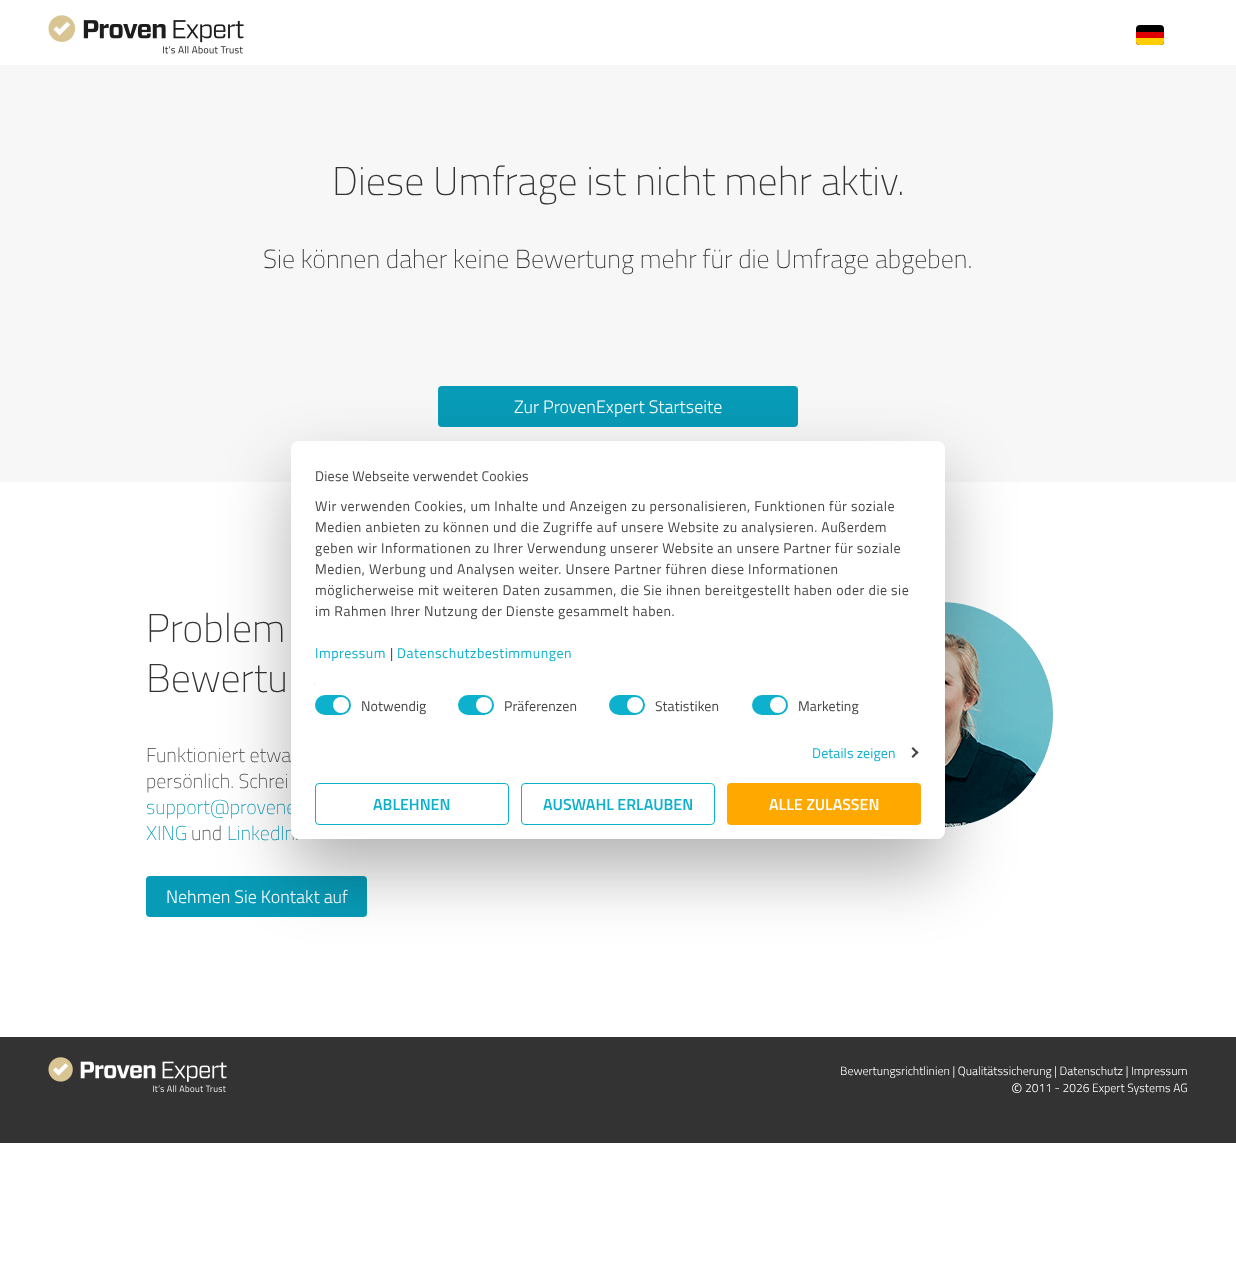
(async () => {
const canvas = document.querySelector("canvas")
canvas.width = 1236
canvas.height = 1280
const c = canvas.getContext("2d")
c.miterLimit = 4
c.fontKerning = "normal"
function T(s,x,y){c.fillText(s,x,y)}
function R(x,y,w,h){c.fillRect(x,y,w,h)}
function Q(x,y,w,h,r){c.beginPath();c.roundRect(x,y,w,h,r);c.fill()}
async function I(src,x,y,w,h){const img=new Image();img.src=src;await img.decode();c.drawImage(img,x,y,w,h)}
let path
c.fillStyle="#fff"
R(0,0,1236,1280)
await I("1.png",48,15,196,39)
c.fillStyle="#000"
Q(1136,25,28,20,4)
c.fillStyle="#d00"
c.beginPath()
c.roundRect(1136,32,28,13,[0,0,4,4])
c.fill()
c.fillStyle="#ffce00"
c.beginPath()
c.roundRect(1136,38,28,7,[0,0,4,4])
c.fill()
c.fillStyle="#f7f7f7"
R(0,65,1236,417)
c.font="200 40px Titillium Web"
c.fillStyle="#333"
T("Diese Umfrage ist nicht mehr aktiv.",332,195)
c.font="200 26px Titillium Web"
T("Sie können daher keine Bewertung mehr für die Umfrage abgeben.",263,268)
c.fillStyle="#089bb7"
Q(438,386,360,41,4)
c.font="300 18px Titillium Web"
c.fillStyle="#fff"
T("Zur ProvenExpert Startseite",514,413)
c.font="200 40px Titillium Web"
c.fillStyle="#333"
T("Problem",146,642)
T("Bewertu",146,692)
c.font="200 20px Titillium Web"
c.fillStyle="#444"
T("Funktioniert etwa",146,762)
T("persönlich. Schrei",146,788)
c.fillStyle="#089bb7"
T("support@provene",146,814)
T("XING",146,840)
c.fillStyle="#444"
T("und",191,840)
c.fillStyle="#089bb7"
T("LinkedIn",227,840)
c.fillStyle="#444"
T(".",295,840)
c.fillStyle="#089bb7"
Q(146,876,221,41,4)
c.font="300 18px Titillium Web"
c.fillStyle="#fff"
T("Nehmen Sie Kontakt auf",166,903)
await I("2.png",945,602,108,225)
c.fillStyle="#0000004d"
c.filter="blur(34px)"
c.beginPath()
c.roundRect(291,473,654,398,8)
c.fill()
c.filter="none"
c.fillStyle="#fff"
Q(291,441,654,398,8)
c.letterSpacing="0.25px"
c.font="14px Titillium Web"
c.fillStyle="#444"
T("Diese Webseite verwendet Cookies",315,481)
c.letterSpacing="0.5px"
T("Wir verwenden Cookies, um Inhalte und Anzeigen zu personalisieren, Funktionen für soziale",315,511)
T("Medien anbieten zu können und die Zugriffe auf unsere Website zu analysieren. Außerdem",315,532)
T("geben wir Informationen zu Ihrer Verwendung unserer Website an unsere Partner für soziale",315,553)
T("Medien, Werbung und Analysen weiter. Unsere Partner führen diese Informationen",315,574)
T("möglicherweise mit weiteren Daten zusammen, die Sie ihnen bereitgestellt haben oder die sie",315,595)
T("im Rahmen Ihrer Nutzung der Dienste gesammelt haben.",315,616)
c.fillStyle="#0db1cd"
T("Impressum",315,658)
c.fillStyle="#444"
T("|",390,658)
c.fillStyle="#0db1cd"
T("Datenschutzbestimmungen",397,658)
c.fillStyle="#e5e5e5"
R(314,683,1,1)
c.fillStyle="#0db1cd"
Q(315,695,36,20,10)
c.fillStyle="#fff"
c.beginPath()
c.arc(341,705,8,0,7)
c.fill()
c.letterSpacing="0.1px"
c.fillStyle="#444"
T("Notwendig",361,711)
c.fillStyle="#0db1cd"
Q(458,695,36,20,10)
c.fillStyle="#fff"
c.beginPath()
c.arc(484,705,8,0,7)
c.fill()
c.fillStyle="#444"
T("Präferenzen",504,711)
c.fillStyle="#0db1cd"
Q(609,695,36,20,10)
c.fillStyle="#fff"
c.beginPath()
c.arc(635,705,8,0,7)
c.fill()
c.fillStyle="#444"
T("Statistiken",655,711)
c.fillStyle="#0db1cd"
Q(752,695,36,20,10)
c.fillStyle="#fff"
c.beginPath()
c.arc(778,705,8,0,7)
c.fill()
c.fillStyle="#444"
T("Marketing",798,711)
c.fillStyle="#0db1cd"
T("Details zeigen",812,758)
c.fillStyle="#444"
path = new Path2D("M913 747l5.5 5.5l-1.5 1.5l-5.5-5.5z")
c.fill(path)
path = new Path2D("M917 751l1.5 1.5l-5.5 5.5l-1.5-1.5z")
c.fill(path)
c.beginPath()
c.roundRect(315.5,783.5,193,41,3.5)
c.strokeStyle="#0db1cd"
c.stroke()
c.letterSpacing="0px"
c.font="600 16px Titillium Web"
c.fillStyle="#0db1cd"
T("ABLEHNEN",373,810)
c.beginPath()
c.roundRect(521.5,783.5,193,41,3.5)
c.stroke()
T("AUSWAHL ERLAUBEN",543,810)
c.fillStyle="#ffa800"
Q(727,783,194,42,4)
c.fillStyle="#fff"
T("ALLE ZULASSEN",769,810)
c.fillStyle="#333"
R(0,1037,1236,106)
await I("3.png",48,1057,179,36)
c.font="300 12px Titillium Web"
c.fillStyle="#fff"
T("Bewertungsrichtlinien | Qualitätssicherung | Datenschutz | Impressum",840,1075)
c.font="300 18px Titillium Web"
T("©",1011,1096)
c.font="300 12px Titillium Web"
T("2011 - 2026 Expert Systems AG",1025,1092)
})()
